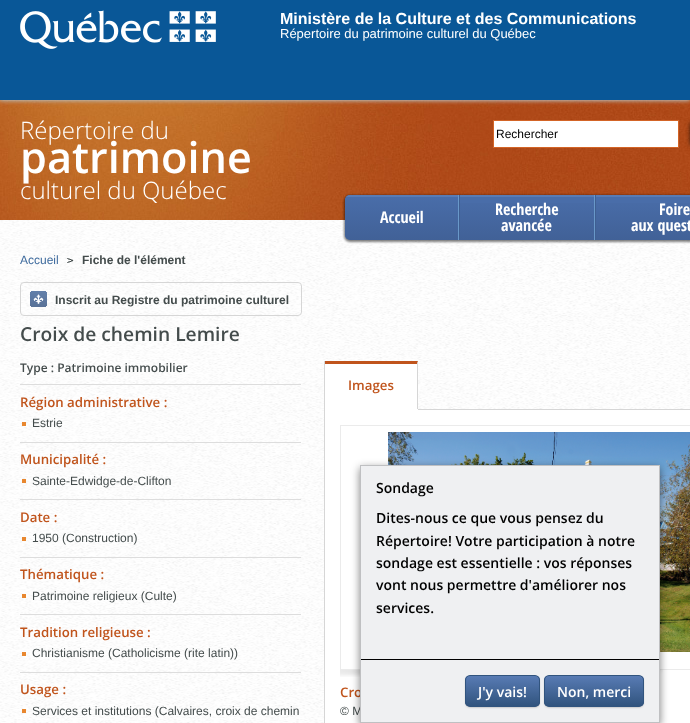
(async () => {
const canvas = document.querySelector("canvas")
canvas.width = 690
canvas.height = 723
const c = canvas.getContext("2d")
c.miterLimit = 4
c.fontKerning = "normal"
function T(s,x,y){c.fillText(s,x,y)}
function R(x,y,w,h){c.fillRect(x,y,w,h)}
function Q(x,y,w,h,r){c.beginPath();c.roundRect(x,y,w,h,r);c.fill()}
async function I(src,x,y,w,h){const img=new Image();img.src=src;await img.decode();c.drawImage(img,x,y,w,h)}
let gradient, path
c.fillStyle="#fff"
R(0,0,690,723)
await I("3.png",0,100,690,120)
c.fillStyle="#bbb"
c.filter="blur(2px)"
c.beginPath()
c.rect(0,1,690,100)
c.fill()
c.filter="none"
c.fillStyle="#095797"
R(0,0,690,100)
await I("1.png",20,10,196,39)
c.font="bold 16px Liberation Sans"
c.fillStyle="#fff"
T("Ministère de la Culture et des Communications",280,24)
c.font="13px Liberation Sans"
T("Répertoire du patrimoine culturel du Québec",280,38)
await I("2.png",0,220,690,503)
c.font="300 24px Open Sans"
T("Répertoire du",20,139)
c.font="600 43.25px Open Sans"
T("patrimoine",20,173)
c.font="300 24px Open Sans"
T("culturel du Québec",20,199)
c.beginPath()
c.rect(493.5,120.5,185,27)
c.fill()
c.strokeStyle="#d36426"
c.stroke()
c.font="12px Liberation Sans"
c.fillStyle="#000"
T("Rechercher",496,138)
c.filter="blur(2.5px)"
c.beginPath()
c.rect(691,123,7,22)
c.fill()
c.filter="none"
c.fillStyle="#00000080"
c.filter="blur(1px)"
c.beginPath()
c.roundRect(344,195,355,47,6)
c.fill()
c.filter="none"
c.fillStyle="#496da9"
Q(345,195,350,45,5)
c.fillStyle="#6998c9"
R(458,195,1,45)
c.save()
c.beginPath()
c.roundRect(345,195,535,45,5)
c.clip()
gradient = c.createLinearGradient(402,197,402,240)
gradient.addColorStop(0,"#496da9")
gradient.addColorStop(1,"#416197")
c.fillStyle = gradient
c.beginPath()
c.roundRect(345,197,113,43,[0,0,0,5])
c.fill()
c.fillStyle="#587bb4"
R(345,195,113,2)
c.restore()
c.font="bold 16px Open Sans Condensed"
c.fillStyle="#fff"
T("Accueil",380,223)
c.fillStyle="#6998c9"
R(594,195,1,45)
c.fillStyle="#3f5f92"
R(459,195,1,45)
gradient = c.createLinearGradient(527,197,527,240)
gradient.addColorStop(0,"#496da9")
gradient.addColorStop(1,"#416197")
c.fillStyle = gradient
R(460,203,134,37)
c.fillStyle="#587bb4"
R(460,195,134,2)
c.fillStyle="#fff"
T("Recherche",495,215)
T("avancée",501,231)
c.fillStyle="#3f5f92"
R(595,195,1,45)
gradient = c.createLinearGradient(674,197,674,240)
gradient.addColorStop(0,"#496da9")
gradient.addColorStop(1,"#416197")
c.fillStyle = gradient
R(596,203,94,37)
c.fillStyle="#587bb4"
R(596,195,94,2)
c.fillStyle="#fff"
T("Foire",659,215)
T("aux quest",631,231)
await I("4.png",67,258,7,5)
c.font="12px Liberation Sans"
c.fillStyle="#3d6a9d"
T("Accueil",20,264)
c.font="bold 12px Liberation Sans"
c.fillStyle="#444c4c"
T("Fiche de l'élément",82,264)
c.beginPath()
c.roundRect(20.5,282.5,281,33,3.5)
c.strokeStyle="#d6d6d6"
c.stroke()
await I("5.png",30,291,17,16)
T("Inscrit au Registre du patrimoine culturel",55,304)
c.font="600 19.25px Open Sans"
T("Croix de chemin Lemire",20,341)
c.fillStyle="#ddd"
R(20,384,281,1)
c.font="600 12px Open Sans"
c.fillStyle="#444c4c"
T("Type : Patrimoine immobilier",20,372)
c.fillStyle="#ddd"
R(20,442,281,1)
c.font="600 13.25px Open Sans"
c.fillStyle="#c0541c"
T("Région administrative :",20,407)
c.fillStyle="#e8872f"
R(22,422,4,4)
c.font="12px Liberation Sans"
c.fillStyle="#444c4c"
T("Estrie",32,427)
c.fillStyle="#ddd"
R(20,499,281,1)
c.font="600 13.25px Open Sans"
c.fillStyle="#c0541c"
T("Municipalité :",20,464)
c.fillStyle="#e8872f"
R(22,479,4,4)
c.font="12px Liberation Sans"
c.fillStyle="#444c4c"
T("Sainte-Edwidge-de-Clifton",32,485)
c.fillStyle="#ddd"
R(20,557,281,1)
c.font="600 13.25px Open Sans"
c.fillStyle="#c0541c"
T("Date :",20,522)
c.fillStyle="#e8872f"
R(22,537,4,4)
c.font="12px Liberation Sans"
c.fillStyle="#444c4c"
T("1950 (Construction)",32,542)
c.fillStyle="#ddd"
R(20,614,281,1)
c.font="600 13.25px Open Sans"
c.fillStyle="#c0541c"
T("Thématique :",20,579)
c.fillStyle="#e8872f"
R(22,594,4,4)
c.font="12px Liberation Sans"
c.fillStyle="#444c4c"
T("Patrimoine religieux (Culte)",32,600)
c.fillStyle="#ddd"
R(20,672,281,1)
c.font="600 13.25px Open Sans"
c.fillStyle="#c0541c"
T("Tradition religieuse :",20,637)
c.fillStyle="#e8872f"
R(22,652,4,4)
c.font="12px Liberation Sans"
c.fillStyle="#444c4c"
T("Christianisme (Catholicisme (rite latin))",32,657)
c.font="600 13.25px Open Sans"
c.fillStyle="#c0541c"
T("Usage :",20,694)
c.fillStyle="#e8872f"
R(22,709,4,4)
c.font="12px Liberation Sans"
c.fillStyle="#444c4c"
T("Services et institutions (Calvaires, croix de chemin",32,715)
c.fillStyle="#fff"
c.beginPath()
c.rect(324.5,409.5,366,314)
c.fill()
c.stroke()
c.fillStyle="#d6d6d6"
R(324,361,1,49)
c.fillStyle="#fff"
R(325,361,93,48)
c.fillStyle="#c0541c"
path = new Path2D("M325 361h93l-1 3h-92z")
c.fill(path)
c.fillStyle="#d6d6d6"
path = new Path2D("M418 361v49l-1-1v-45z")
c.fill(path)
c.fillStyle="#fff"
R(325,409,93,1)
c.font="600 13.25px Open Sans"
c.fillStyle="#c0541c"
T("Images",348,390)
c.strokeStyle="#ebebeb"
c.strokeRect(340.5,425.5,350,244)
await I("6.png",388,432,302,220)
await I("7.png",340,670,323,7)
T("Cro",340,697)
c.font="12px Liberation Sans"
c.fillStyle="#444c4c"
T("© M",340,715)
c.fillStyle="#eff0f2"
R(361,466,298,256)
c.save()
path = new Path2D("M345 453h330v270h-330zm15 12h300v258h-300z")
c.clip(path,"evenodd")
c.fillStyle="#00000080"
c.filter="blur(4.5px)"
c.beginPath()
c.rect(360,468,300,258)
c.fill()
c.filter="none"
c.restore()
c.strokeStyle="#bfc0c2"
c.strokeRect(360.5,465.5,299,257)
c.font="600 14px Open Sans"
c.fillStyle="#000"
T("Sondage",376,493)
T("Dites-nous ce que vous pensez du",376,523)
T("Répertoire! Votre participation à notre",376,546)
T("sondage est essentielle : vos réponses",376,568)
T("vont nous permettre d'améliorer nos",376,590)
T("services.",376,613)
R(361,659,298,1)
c.fillStyle="#000000cc"
c.filter="blur(1.5px)"
c.beginPath()
c.roundRect(467,678,71,28,3)
c.fill()
c.filter="none"
c.save()
c.beginPath()
c.roundRect(465,675,75,32,5)
c.clip()
gradient = c.createLinearGradient(503,676,503,706)
gradient.addColorStop(0,"#587bb4")
gradient.addColorStop(1,"#31547e")
c.fillStyle = gradient
R(465,676,75,30)
c.restore()
c.beginPath()
c.roundRect(465.5,675.5,74,31,4.5)
c.strokeStyle="#31547e"
c.stroke()
c.fillStyle="#fff"
T("J'y vais!",478,697)
c.fillStyle="#000000cc"
c.filter="blur(1.5px)"
c.beginPath()
c.roundRect(546,678,96,28,3)
c.fill()
c.filter="none"
c.save()
c.beginPath()
c.roundRect(544,675,100,32,5)
c.clip()
gradient = c.createLinearGradient(594,676,594,706)
gradient.addColorStop(0,"#587bb4")
gradient.addColorStop(1,"#31547e")
c.fillStyle = gradient
R(544,676,100,30)
c.restore()
c.beginPath()
c.roundRect(544.5,675.5,99,31,4.5)
c.stroke()
c.fillStyle="#fff"
T("Non, merci",557,697)
})()
